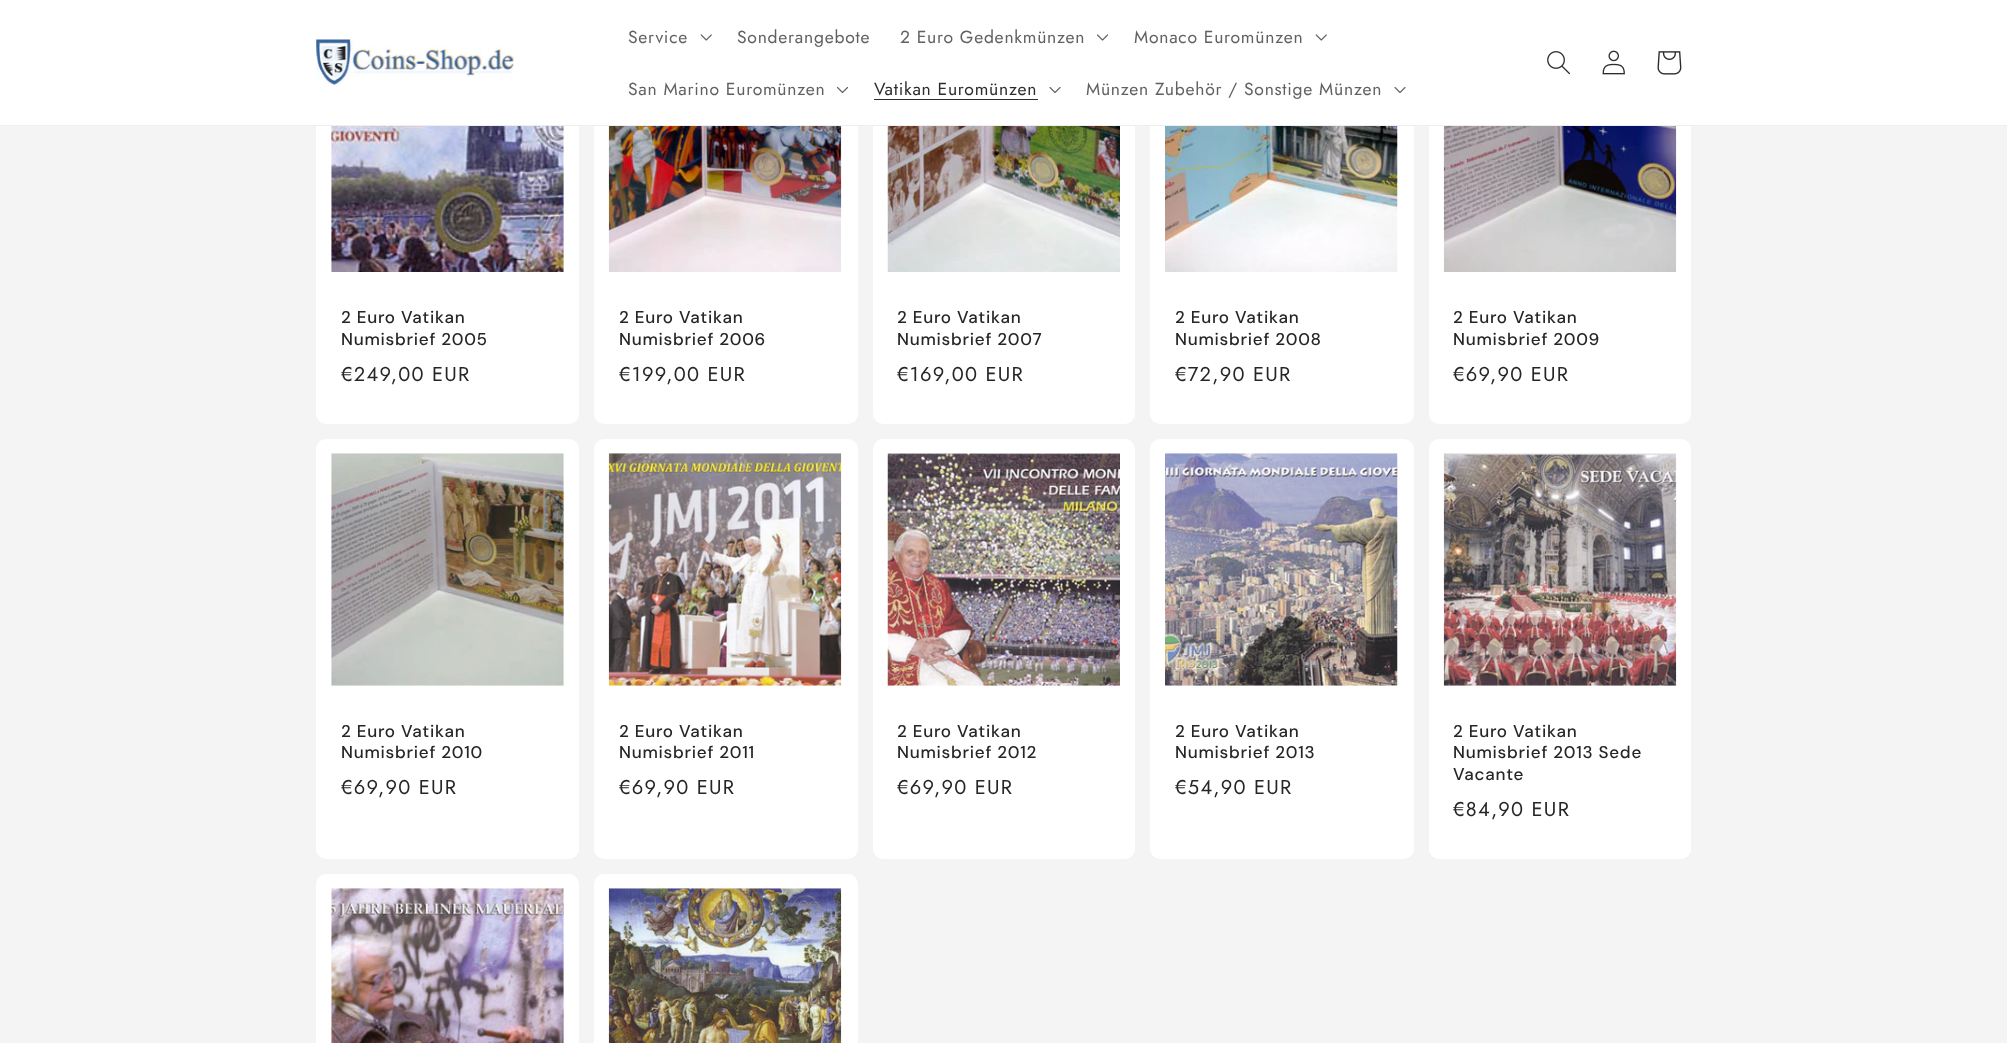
(async () => {
const canvas = document.querySelector("canvas")
canvas.width = 2007
canvas.height = 1043
const c = canvas.getContext("2d")
c.miterLimit = 4
c.fontKerning = "normal"
function T(s,x,y){c.fillText(s,x,y)}
function R(x,y,w,h){c.fillRect(x,y,w,h)}
function Q(x,y,w,h,r){c.beginPath();c.roundRect(x,y,w,h,r);c.fill()}
async function I(src,x,y,w,h){const img=new Image();img.src=src;await img.decode();c.drawImage(img,x,y,w,h)}
c.fillStyle="#f4f4f4"
R(0,0,2007,1043)
c.fillStyle="#fff"
Q(316,25,263,399,10)
Q(594,25,264,399,10)
Q(873,25,262,399,10)
Q(1150,25,264,399,10)
Q(1429,25,262,399,10)
R(0,0,2007,125)
c.fillStyle="#eee"
R(0,125,2007,1)
await I("1.png",316,39,198,46)
c.letterSpacing="0.75px"
c.font="17.5px Jost"
c.fillStyle="#606162"
T("Service",628,43)
await I("2.png",700,34,12,7)
T("Sonderangebote",737,43)
T("2 Euro Gedenkmünzen",900,43)
await I("3.png",1097,34,11,7)
T("Monaco Euromünzen",1134,43)
await I("2.png",1315,34,12,7)
T("San Marino Euromünzen",628,95)
await I("4.png",836,86,13,8)
c.fillStyle="#2b2c2d"
T("Vatikan Euromünzen",874,95)
R(874,99,164,1)
await I("5.png",1049,87,12,6)
c.fillStyle="#606162"
T("Münzen Zubehör / Sonstige Münzen",1086,95)
await I("5.png",1394,87,12,6)
await I("6.png",1547,51,23,24)
await I("7.png",1602,50,23,25)
await I("8.png",1657,51,25,24)
await I("9.png",331,126,233,146)
c.font="500 17px DM Sans"
c.fillStyle="#262626"
T("2 Euro Vatikan",341,323)
T("Numisbrief 2005",341,345)
c.letterSpacing="1.25px"
c.font="20px Jost"
T("€249,00 EUR",341,381)
await I("10.png",608,126,234,146)
c.letterSpacing="0.75px"
c.font="500 17px DM Sans"
T("2 Euro Vatikan",619,323)
T("Numisbrief 2006",619,345)
c.letterSpacing="1.25px"
c.font="20px Jost"
T("€199,00 EUR",619,381)
await I("11.png",887,126,233,146)
c.letterSpacing="0.75px"
c.font="500 17px DM Sans"
T("2 Euro Vatikan",897,323)
T("Numisbrief 2007",897,345)
c.letterSpacing="1.25px"
c.font="20px Jost"
T("€169,00 EUR",897,381)
await I("12.png",1165,126,233,146)
c.letterSpacing="0.75px"
c.font="500 17px DM Sans"
T("2 Euro Vatikan",1175,323)
T("Numisbrief 2008",1175,345)
c.letterSpacing="1.25px"
c.font="20px Jost"
T("€72,90 EUR",1175,381)
await I("13.png",1443,126,234,146)
c.letterSpacing="0.75px"
c.font="500 17px DM Sans"
T("2 Euro Vatikan",1453,323)
T("Numisbrief 2009",1453,345)
c.letterSpacing="1.25px"
c.font="20px Jost"
T("€69,90 EUR",1453,381)
c.fillStyle="#fff"
Q(316,439,263,420,10)
await I("14.png",331,453,233,233)
c.letterSpacing="0.75px"
c.font="500 17px DM Sans"
c.fillStyle="#262626"
T("2 Euro Vatikan",341,737)
T("Numisbrief 2010",341,758)
c.letterSpacing="1.25px"
c.font="20px Jost"
T("€69,90 EUR",341,794)
c.fillStyle="#fff"
Q(594,439,264,420,10)
await I("15.png",608,453,234,233)
c.letterSpacing="0.75px"
c.font="500 17px DM Sans"
c.fillStyle="#262626"
T("2 Euro Vatikan",619,737)
T("Numisbrief 2011",619,758)
c.letterSpacing="1.25px"
c.font="20px Jost"
T("€69,90 EUR",619,794)
c.fillStyle="#fff"
Q(873,439,262,420,10)
await I("16.png",887,453,233,233)
c.letterSpacing="0.75px"
c.font="500 17px DM Sans"
c.fillStyle="#262626"
T("2 Euro Vatikan",897,737)
T("Numisbrief 2012",897,758)
c.letterSpacing="1.25px"
c.font="20px Jost"
T("€69,90 EUR",897,794)
c.fillStyle="#fff"
Q(1150,439,264,420,10)
await I("17.png",1165,453,233,233)
c.letterSpacing="0.75px"
c.font="500 17px DM Sans"
c.fillStyle="#262626"
T("2 Euro Vatikan",1175,737)
T("Numisbrief 2013",1175,758)
c.letterSpacing="1.25px"
c.font="20px Jost"
T("€54,90 EUR",1175,794)
c.fillStyle="#fff"
Q(1429,439,262,420,10)
await I("18.png",1443,453,234,233)
c.letterSpacing="0.75px"
c.font="500 17px DM Sans"
c.fillStyle="#262626"
T("2 Euro Vatikan",1453,737)
T("Numisbrief 2013 Sede",1453,758)
T("Vacante",1453,780)
c.letterSpacing="1.25px"
c.font="20px Jost"
T("€84,90 EUR",1453,816)
c.fillStyle="#fff"
Q(316,874,263,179,10)
await I("19.png",331,888,233,155)
Q(594,874,264,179,10)
await I("20.png",608,888,234,155)
})()
